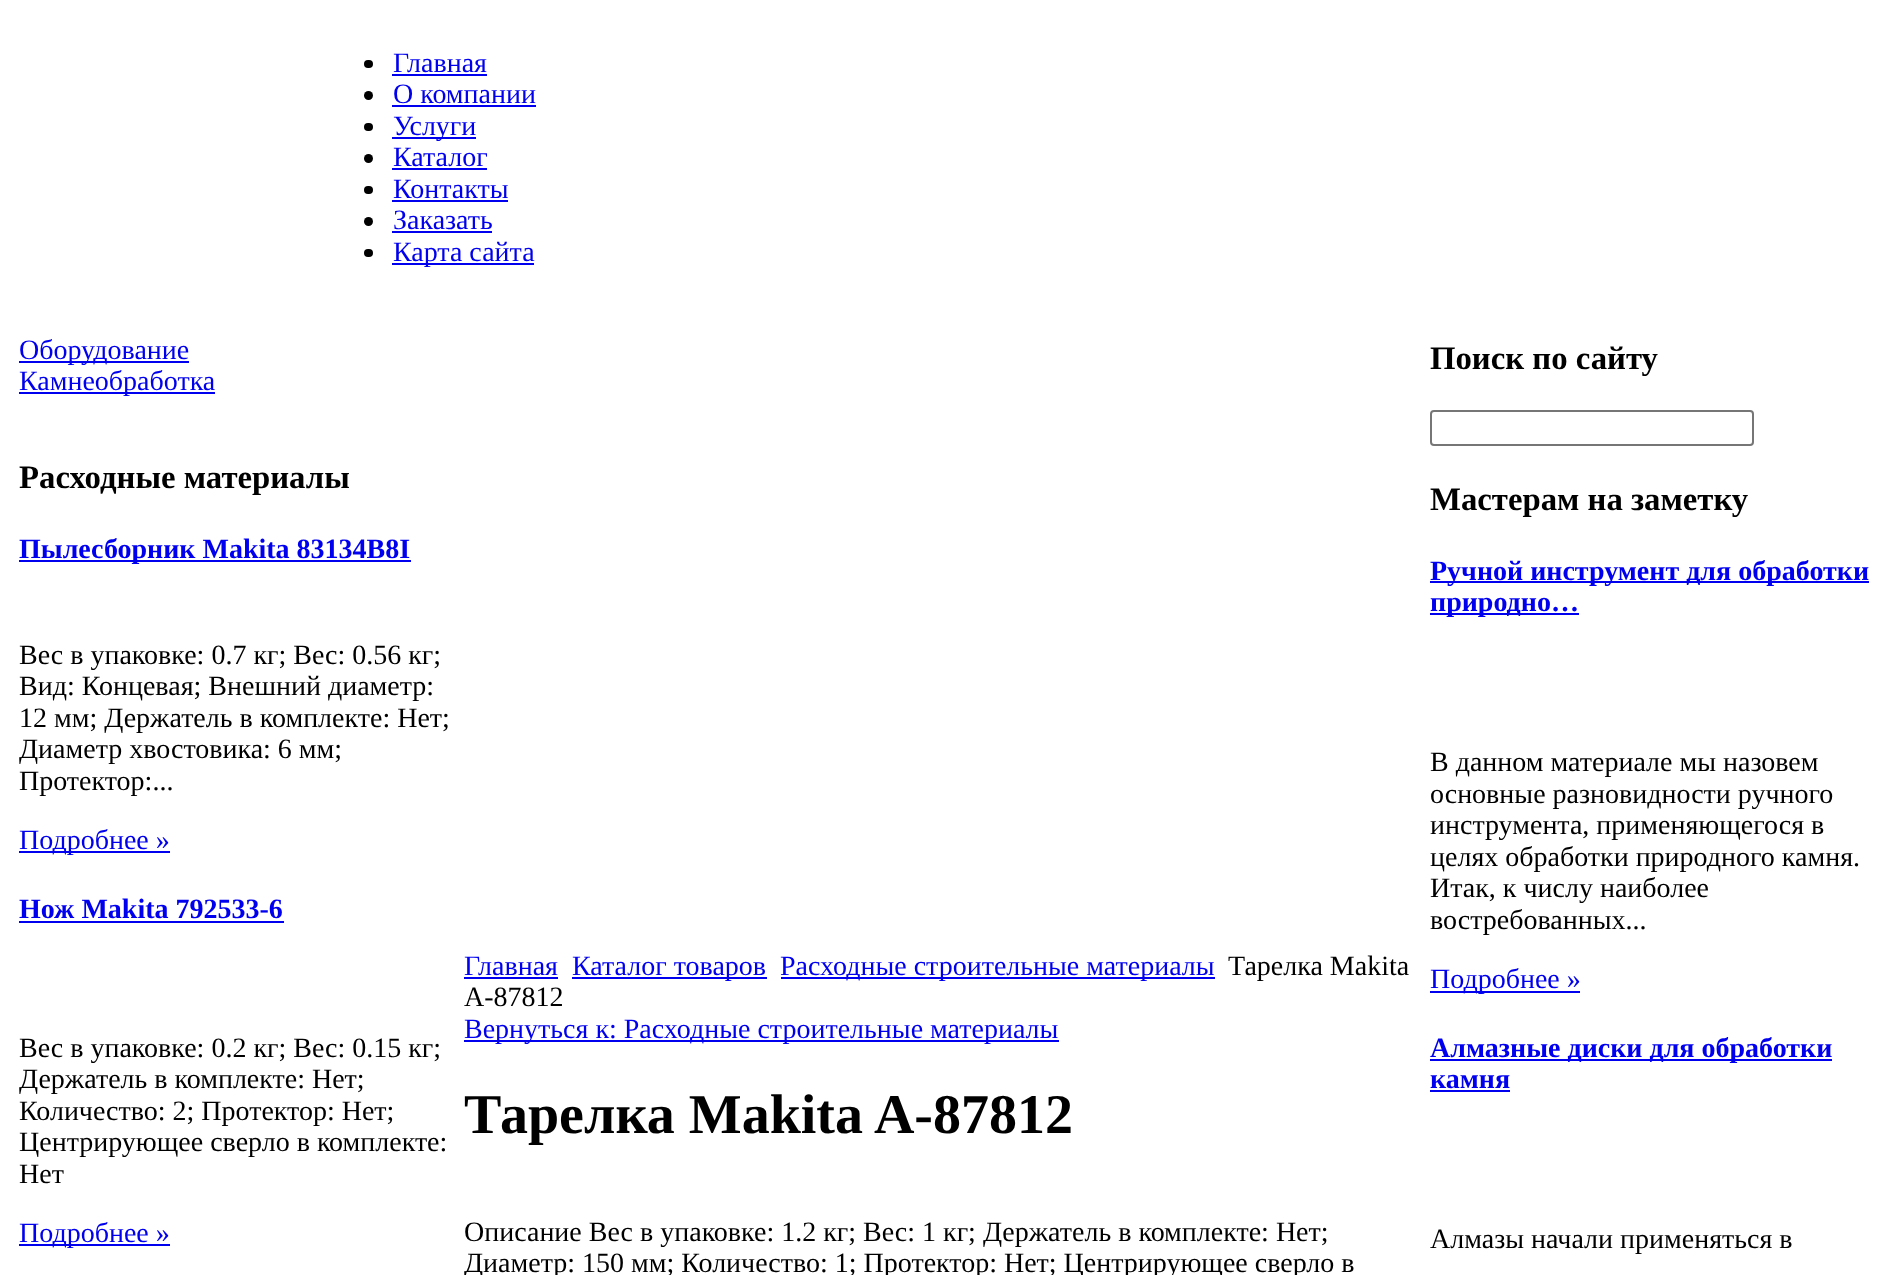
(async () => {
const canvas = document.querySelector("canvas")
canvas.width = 1903
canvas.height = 1275
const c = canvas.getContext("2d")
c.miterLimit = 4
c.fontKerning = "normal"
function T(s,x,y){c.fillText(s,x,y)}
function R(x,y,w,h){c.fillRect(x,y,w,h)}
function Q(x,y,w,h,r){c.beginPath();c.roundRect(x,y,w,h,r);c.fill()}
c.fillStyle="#fff"
R(0,0,1903,1275)
c.fillStyle="#000"
Q(364,60,9,8,4)
c.font="28px Liberation Serif"
c.fillStyle="#00e"
T("Главная",393,72)
R(392,74,95,2)
c.fillStyle="#000"
c.beginPath()
c.arc(368.5,95.5,4.5,0,7)
c.fill()
c.fillStyle="#00e"
T("О компании",393,103)
R(392,105,144,2)
c.fillStyle="#000"
Q(364,123,9,8,4)
c.fillStyle="#00e"
R(392,137,84,2)
T("Услуги",393,135)
c.fillStyle="#000"
c.beginPath()
c.arc(368.5,158.5,4.5,0,7)
c.fill()
c.fillStyle="#00e"
T("Каталог",393,166)
R(392,168,95,2)
c.fillStyle="#000"
Q(364,186,9,8,4)
c.fillStyle="#00e"
T("Контакты",393,198)
R(392,200,116,2)
c.fillStyle="#000"
c.beginPath()
c.arc(368.5,221.5,4.5,0,7)
c.fill()
c.fillStyle="#00e"
T("Заказать",393,229)
R(392,231,100,2)
c.fillStyle="#000"
Q(364,249,9,8,4)
c.fillStyle="#00e"
R(392,263,142,2)
T("Карта сайта",393,261)
R(19,361,170,2)
T("Оборудование",19,359)
R(19,392,196,2)
T("Камнеобработка",19,390)
c.font="bold 32.75px Liberation Serif"
c.fillStyle="#000"
T("Расходные материалы",19,488)
c.fillStyle="#00e"
R(19,560,392,2)
c.font="bold 28px Liberation Serif"
T("Пылесборник Makita 83134B8I",19,558)
c.font="28px Liberation Serif"
c.fillStyle="#000"
T("Вес в упаковке: 0.7 кг; Вес: 0.56 кг;",19,664)
T("Вид: Концевая; Внешний диаметр:",19,695)
T("12 мм; Держатель в комплекте: Нет;",19,727)
T("Диаметр хвостовика: 6 мм;",19,758)
T("Протектор:...",19,790)
c.fillStyle="#00e"
R(19,851,151,2)
T("Подробнее »",19,849)
c.font="bold 28px Liberation Serif"
T("Нож Makita 792533-6",19,918)
R(19,921,265,2)
c.font="28px Liberation Serif"
c.fillStyle="#000"
T("Вес в упаковке: 0.2 кг; Вес: 0.15 кг;",19,1057)
T("Держатель в комплекте: Нет;",19,1088)
T("Количество: 2; Протектор: Нет;",19,1120)
T("Центрирующее сверло в комплекте:",19,1151)
T("Нет",19,1183)
c.fillStyle="#00e"
R(19,1244,151,2)
T("Подробнее »",19,1242)
T("Главная",464,975)
R(464,977,94,2)
R(572,977,195,2)
T("Каталог товаров",572,975)
R(781,977,434,2)
T("Расходные строительные материалы",780,975)
c.fillStyle="#000"
T("Тарелка Makita",1228,975)
T("A-87812",464,1006)
c.fillStyle="#00e"
R(464,1040,595,2)
T("Вернуться к: Расходные строительные материалы",464,1038)
c.font="bold 56px Liberation Serif"
c.fillStyle="#000"
T("Тарелка Makita A-87812",464,1133)
c.font="28px Liberation Serif"
T("Описание Вес в упаковке: 1.2 кг; Вес: 1 кг; Держатель в комплекте: Нет;",464,1241)
T("Диаметр: 150 мм; Количество: 1; Протектор: Нет; Центрирующее сверло в",464,1272)
c.font="bold 32.75px Liberation Serif"
T("Поиск по сайту",1430,369)
c.beginPath()
c.roundRect(1431,411,322,34,3)
c.strokeStyle="#767676"
c.lineWidth=2
c.stroke()
T("Мастерам на заметку",1430,510)
c.fillStyle="#00e"
R(1430,581,439,2)
c.font="bold 28px Liberation Serif"
T("Ручной инструмент для обработки",1430,580)
R(1430,613,149,2)
T("природно…",1430,611)
c.font="28px Liberation Serif"
c.fillStyle="#000"
T("В данном материале мы назовем",1430,771)
T("основные разновидности ручного",1430,803)
T("инструмента, применяющегося в",1430,834)
T("целях обработки природного камня.",1430,866)
T("Итак, к числу наиболее",1430,897)
T("востребованных...",1430,929)
c.fillStyle="#00e"
R(1430,991,150,2)
T("Подробнее »",1430,988)
R(1430,1059,402,2)
c.font="bold 28px Liberation Serif"
T("Алмазные диски для обработки",1430,1057)
T("камня",1430,1088)
R(1430,1090,80,2)
c.font="28px Liberation Serif"
c.fillStyle="#000"
T("Алмазы начали применяться в",1430,1248)
})()
